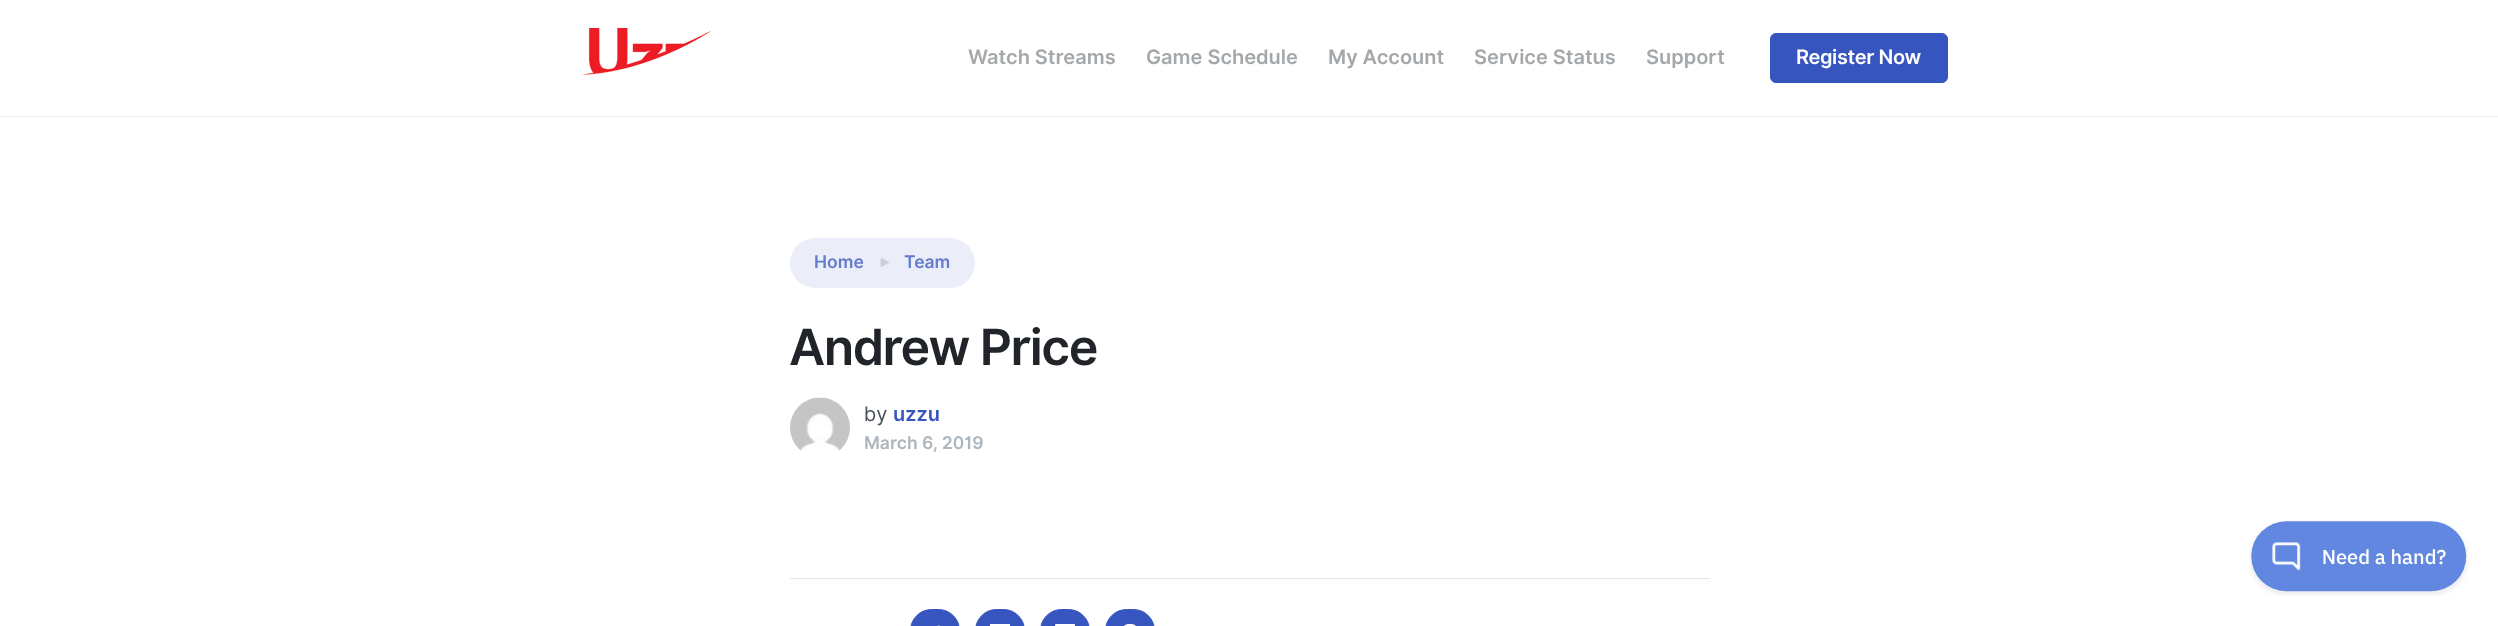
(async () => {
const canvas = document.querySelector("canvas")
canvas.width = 2498
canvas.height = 626
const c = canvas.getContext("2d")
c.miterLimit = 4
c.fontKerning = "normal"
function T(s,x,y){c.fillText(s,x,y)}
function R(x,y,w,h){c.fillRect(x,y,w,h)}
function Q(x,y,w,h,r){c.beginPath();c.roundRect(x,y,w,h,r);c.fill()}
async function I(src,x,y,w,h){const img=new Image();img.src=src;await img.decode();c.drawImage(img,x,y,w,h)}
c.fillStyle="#fff"
R(0,0,2498,626)
c.fillStyle="#ededef"
R(0,116,2498,1)
await I("1.png",582,28,129,48)
c.font="600 20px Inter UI"
c.fillStyle="#a4a8ab"
T("Watch Streams",968,64)
T("Game Schedule",1146,64)
T("My Account",1328,64)
T("Service Status",1474,64)
T("Support",1646,64)
c.fillStyle="#3755be"
c.beginPath()
c.roundRect(1770.5,33.5,177,49,5.5)
c.fill()
c.strokeStyle="#3755be"
c.stroke()
c.letterSpacing="-0.4px"
c.fillStyle="#fff"
T("Register Now",1796,64)
c.fillStyle="#ebeef9"
Q(790,238,185,50,25)
c.letterSpacing="0px"
c.font="600 17.5px Inter UI"
c.fillStyle="#647bcd"
T("Home",814,268)
await I("2.png",880,258,9,9)
T("Team",904,268)
c.letterSpacing="-1.5px"
c.font="600 50px Inter UI"
c.fillStyle="#212529"
T("Andrew Price",789,365)
await I("3.png",790,397,60,54)
c.letterSpacing="0px"
c.font="20px Inter UI"
c.fillStyle="#495057"
T("by",864,421)
c.font="600 20px Inter UI"
c.fillStyle="#3755be"
T("uzzu",893,421)
c.font="600 17.5px Inter UI"
c.fillStyle="#adb5bd"
T("March 6, 2019",864,449)
await I("4.png",2249,521,220,75)
c.fillStyle="#e6e6e6"
R(790,578,920,1)
c.fillStyle="#3755be"
c.beginPath()
c.roundRect(910.5,609.5,49,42,24.5)
c.fill()
c.stroke()
await I("5.png",937,625,4,1)
c.beginPath()
c.roundRect(975.5,609.5,49,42,24.5)
c.fill()
c.stroke()
await I("6.png",990,624,20,2)
c.beginPath()
c.roundRect(1040.5,609.5,49,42,24.5)
c.fill()
c.stroke()
await I("7.png",1055,624,20,2)
c.beginPath()
c.roundRect(1105.5,609.5,49,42,24.5)
c.fill()
c.stroke()
await I("8.png",1123,624,13,2)
})()
